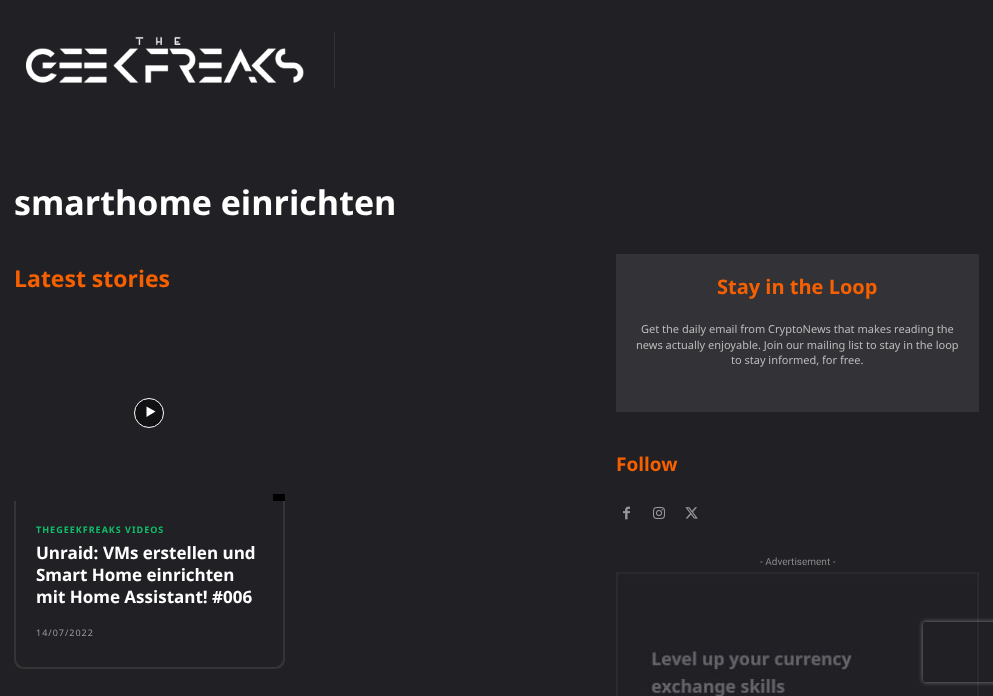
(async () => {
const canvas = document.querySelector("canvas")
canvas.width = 993
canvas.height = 696
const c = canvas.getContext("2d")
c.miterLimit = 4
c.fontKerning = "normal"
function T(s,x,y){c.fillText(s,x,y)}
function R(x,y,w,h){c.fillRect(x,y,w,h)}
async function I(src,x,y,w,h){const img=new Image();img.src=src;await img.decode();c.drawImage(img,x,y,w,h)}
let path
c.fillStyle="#212025"
R(0,0,993,696)
c.fillStyle="#333237"
R(334,32,1,56)
await I("1.png",26,36,278,47)
c.font="bold 34px Noto Sans"
c.fillStyle="#fff"
T("smarthome einrichten",14,215)
c.font="bold 23px Noto Sans"
c.fillStyle="#f66000"
T("Latest stories",14,287)
c.fillStyle="#0000007a"
c.beginPath()
c.arc(149,413,14.5,0,7)
c.fill()
c.strokeStyle="#fff"
c.stroke()
c.fillStyle="#fff"
path = new Path2D("M146.5 406.5v10.5l9-5.5z")
c.fill(path)
c.fillStyle="#000"
R(273,494,12,7)
c.fillStyle="#353535"
path = new Path2D("M14 501h271v158c0 6-4 10-10 10h-251c-6 0-10-4-10-10zm2 0h267v158c0 4-4 8-8 8h-251c-4 0-8-4-8-8z")
c.fill(path,"evenodd")
c.letterSpacing="1px"
c.font="bold 9px Noto Sans"
c.fillStyle="#10bf6b"
T("THEGEEKFREAKS VIDEOS",36,533)
c.letterSpacing="0px"
c.font="bold 17px Noto Sans"
c.fillStyle="#fff"
T("Unraid: VMs erstellen und",36,559)
T("Smart Home einrichten",36,581)
T("mit Home Assistant! #006",36,603)
c.letterSpacing="1px"
c.font="9px Noto Sans"
c.fillStyle="#999"
T("14/07/2022",36,636)
c.fillStyle="#333237"
R(616,254,363,158)
c.letterSpacing="0px"
c.font="bold 20px Noto Sans"
c.fillStyle="#f66000"
T("Stay in the Loop",717,294)
c.font="11px Noto Sans"
c.fillStyle="#bbb"
T("Get the daily email from CryptoNews that makes reading the",641,333)
T("news actually enjoyable. Join our mailing list to stay in the loop",636,349)
T("to stay informed, for free.",731,364)
c.font="bold 19px Noto Sans"
c.fillStyle="#f66000"
T("Follow",616,471)
await I("2.png",623,506,7,14)
await I("3.png",653,507,12,12)
await I("4.png",685,507,13,12)
c.font="10px Roboto"
c.fillStyle="#888"
T("- Advertisement -",760,565)
await I("5.png",616,572,363,124)
c.save()
path = new Path2D("M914 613h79v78h-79zm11 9h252c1 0 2 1 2 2v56c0 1-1 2-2 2h-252c-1 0-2-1-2-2v-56c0-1 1-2 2-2z")
c.clip(path,"evenodd")
c.fillStyle="#808080"
c.filter="blur(2.5px)"
c.beginPath()
c.roundRect(923,622,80,60,2)
c.fill()
c.filter="none"
c.restore()
})()
